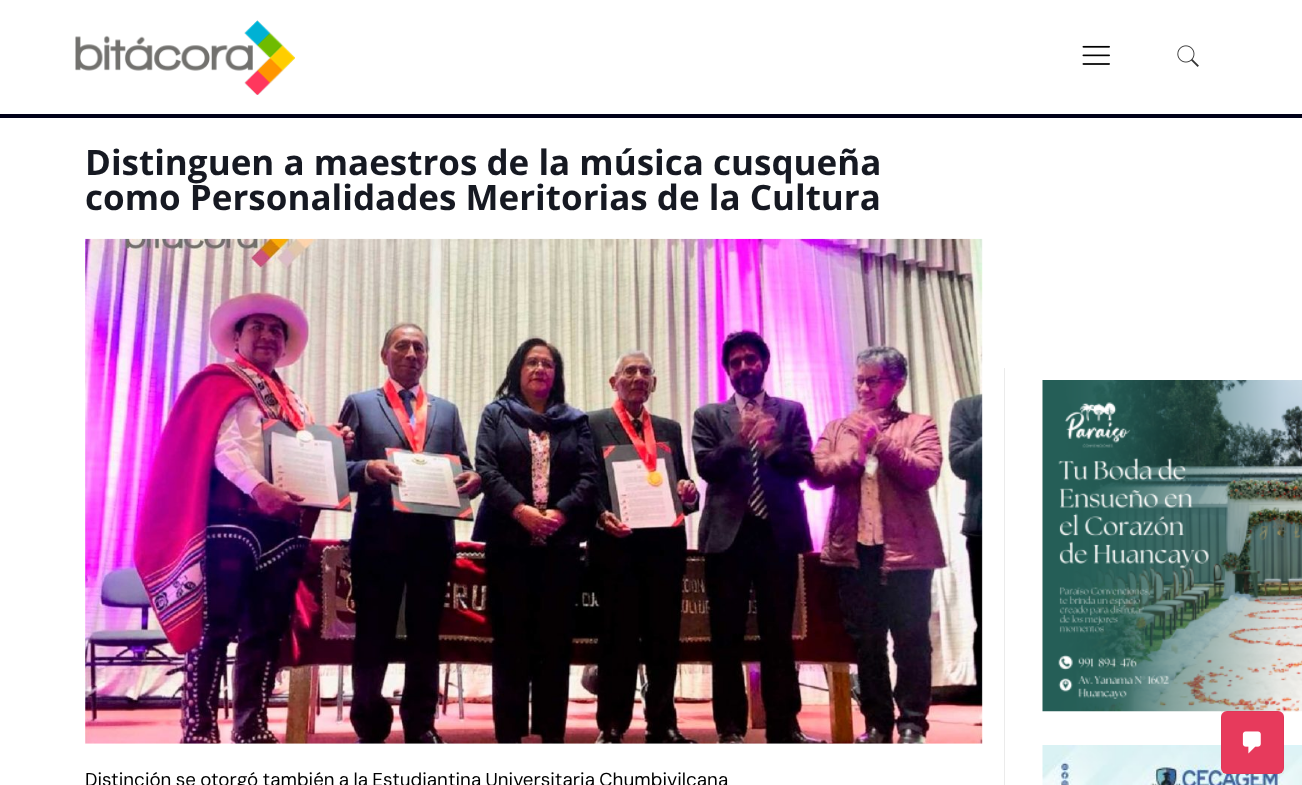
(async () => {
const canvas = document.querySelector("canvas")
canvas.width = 1302
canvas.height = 785
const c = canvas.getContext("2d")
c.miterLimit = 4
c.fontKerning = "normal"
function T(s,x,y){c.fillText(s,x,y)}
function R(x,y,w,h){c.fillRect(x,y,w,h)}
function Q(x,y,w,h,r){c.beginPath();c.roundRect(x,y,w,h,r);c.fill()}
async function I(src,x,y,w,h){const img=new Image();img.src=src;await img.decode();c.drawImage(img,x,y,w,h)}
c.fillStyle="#fff"
R(0,0,1302,785)
c.fillStyle="#000119"
R(0,114,1302,4)
await I("1.png",75,20,220,75)
await I("2.png",1082,45,28,20)
await I("3.png",1177,45,22,22)
c.font="bold 35px Open Sans"
c.fillStyle="#161922"
T("Distinguen a maestros de la música cusqueña",85,175)
T("como Personalidades Meritorias de la Cultura",85,210)
await I("4.png",85,238,898,506)
c.wordSpacing="-0.75px"
c.font="18.75px DM Sans"
c.fillStyle="#000"
T("Distinción se otorgó también a la Estudiantina Universitaria Chumbivilcana",85,786)
c.fillStyle="#ebebeb"
R(1004,368,1,417)
await I("5.png",1042,380,260,332)
await I("6.png",1042,745,260,40)
c.fillStyle="#e73a5c"
Q(1221,711,63,63,6)
c.strokeStyle="#00000008"
c.strokeRect(1221.5,711.5,62,62)
await I("7.png",1242,731,19,23)
})()
